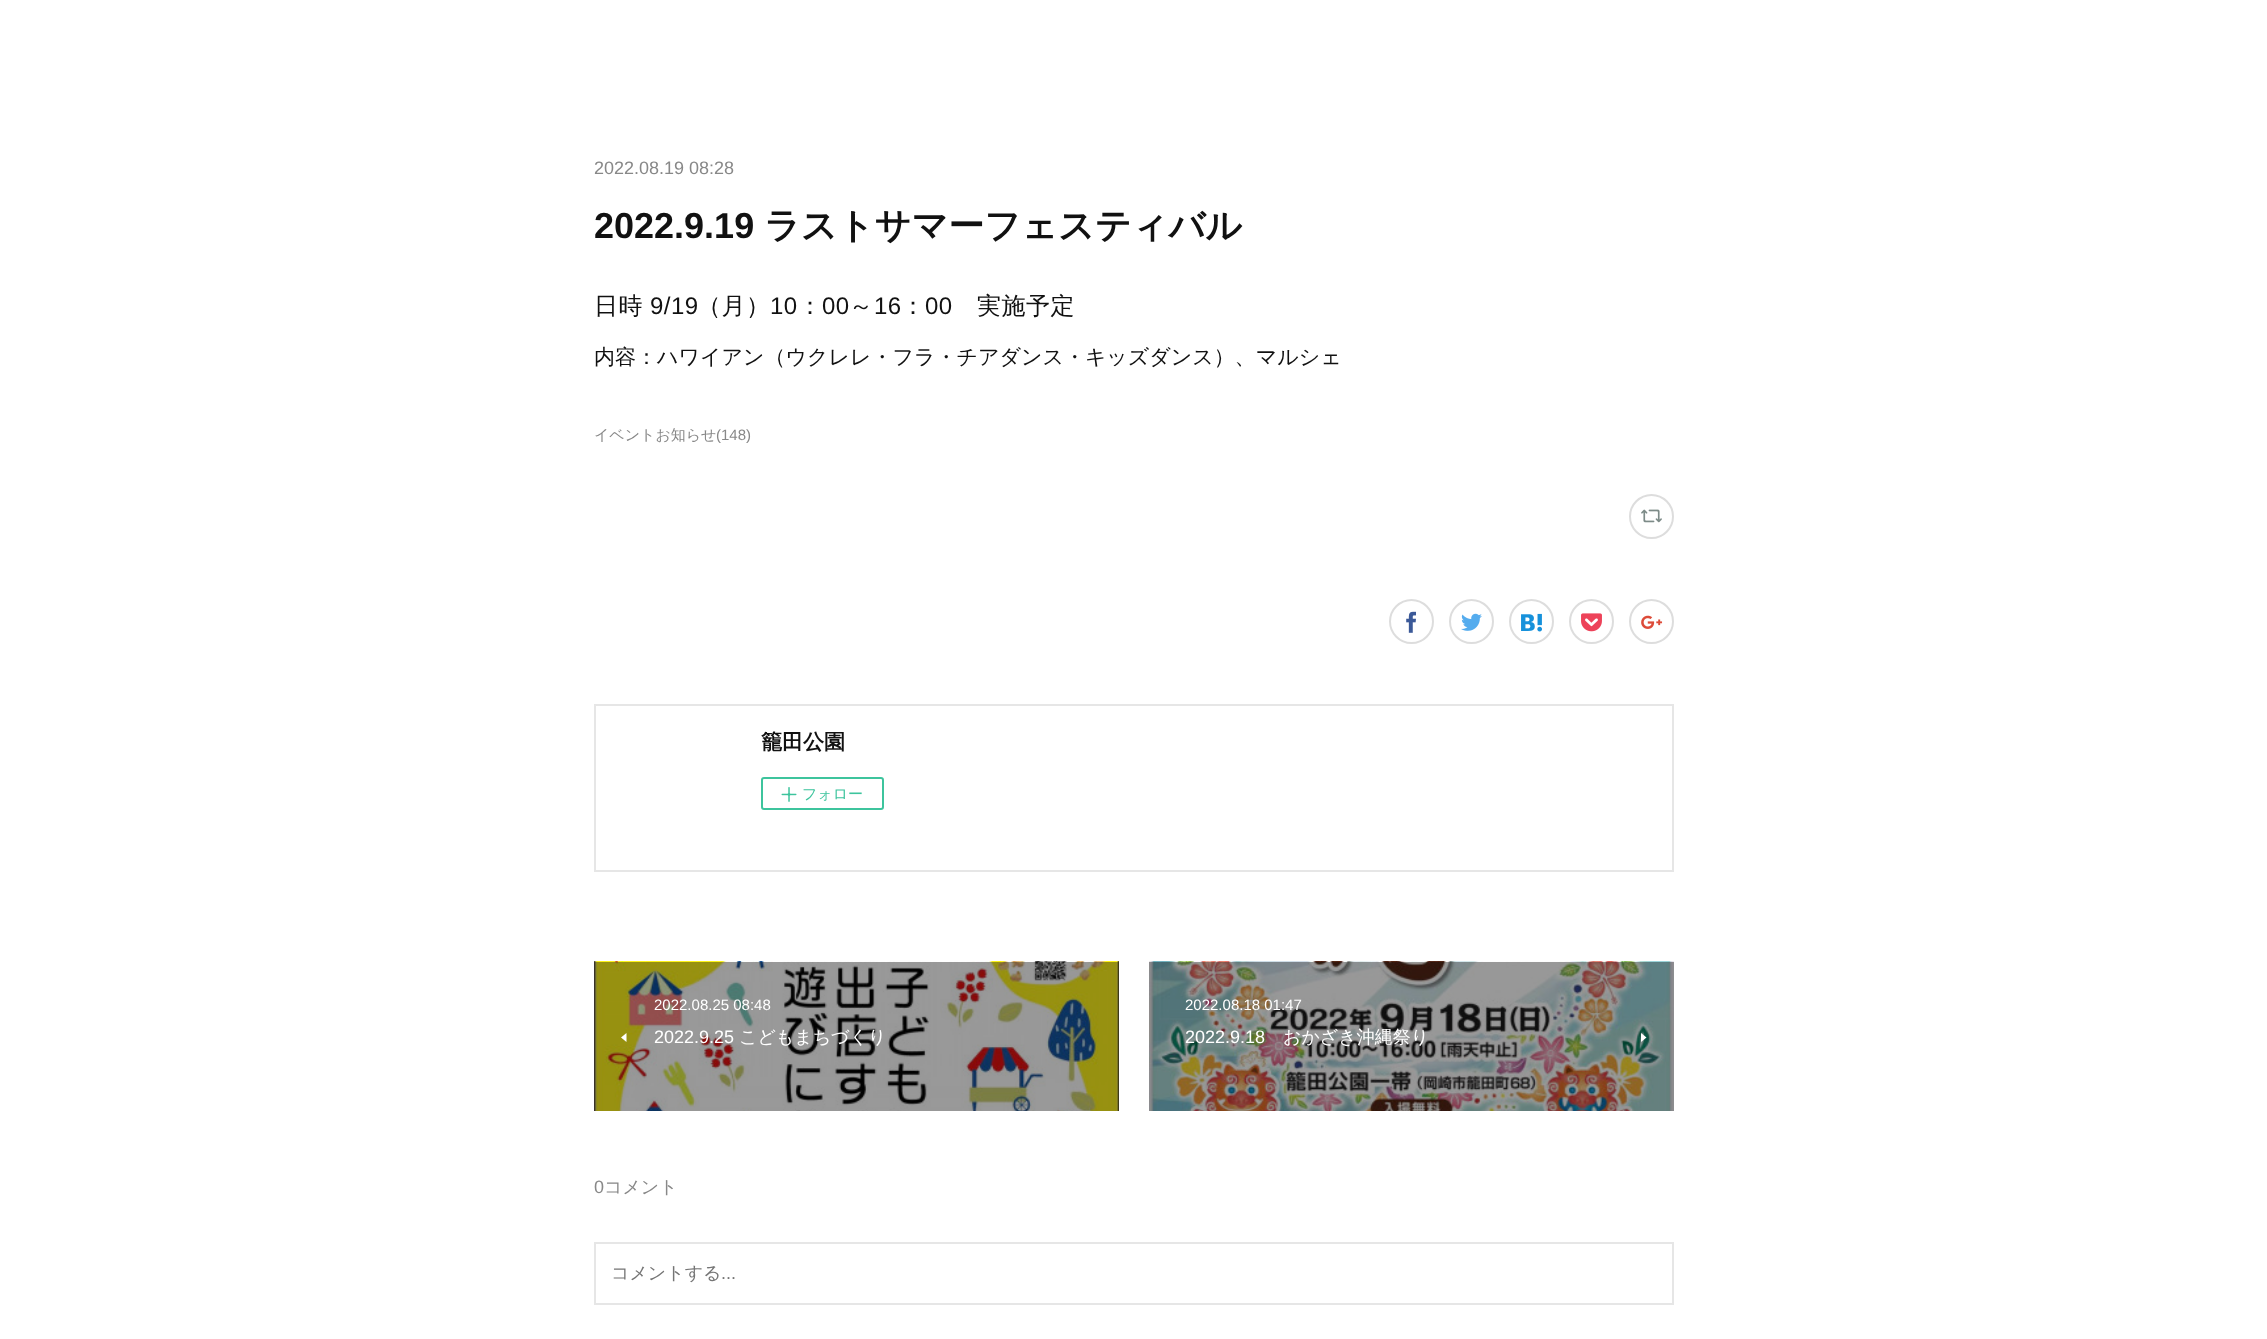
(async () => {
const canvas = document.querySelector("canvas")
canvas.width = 2267
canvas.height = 1339
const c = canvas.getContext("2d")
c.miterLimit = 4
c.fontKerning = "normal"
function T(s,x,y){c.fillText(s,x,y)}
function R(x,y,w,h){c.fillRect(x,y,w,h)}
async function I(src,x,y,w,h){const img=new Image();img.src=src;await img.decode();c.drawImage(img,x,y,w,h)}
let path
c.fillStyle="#fff"
R(0,0,2267,1339)
c.font="18px Liberation Sans"
c.fillStyle="#888"
T("2022.08.19 08:28",594,174)
c.font="bold 36px Liberation Sans"
c.fillStyle="#111"
T("2022.9.19",594,238)
c.font="bold 36px WenQuanYi Zen Hei"
T("ラストサマーフェスティバル",764,238)
c.letterSpacing="0.5px"
c.font="500 24px WenQuanYi Zen Hei"
T("日時",594,314)
c.font="24px Liberation Sans"
T("9/19",650,314)
c.font="500 24px WenQuanYi Zen Hei"
T("（月）",697,314)
c.font="24px Liberation Sans"
T("10",770,314)
c.font="500 24px WenQuanYi Zen Hei"
T("：",798,314)
c.font="24px Liberation Sans"
T("00",822,314)
c.font="500 24px WenQuanYi Zen Hei"
T("～",849,314)
c.font="24px Liberation Sans"
T("16",874,314)
c.font="500 24px WenQuanYi Zen Hei"
T("：",901,314)
c.font="24px Liberation Sans"
T("00",925,314)
c.font="500 24px WenQuanYi Zen Hei"
T("実施予定",977,314)
c.letterSpacing="0px"
c.font="500 21px WenQuanYi Zen Hei"
T("内容：ハワイアン（ウクレレ・フラ・チアダンス・キッズダンス）、マルシェ",594,364)
c.font="500 15px WenQuanYi Zen Hei"
c.fillStyle="#888"
T("イベントお知らせ",594,440)
c.font="15px Liberation Sans"
T("(148)",716,440)
c.beginPath()
c.arc(1651.5,516.5,21.5,0,7)
c.strokeStyle="#ddd"
c.lineWidth=2
c.stroke()
await I("1.png",1641,509,21,14)
c.beginPath()
c.arc(1411.5,621.5,21.5,0,7)
c.stroke()
await I("2.png",1406,611,10,22)
c.beginPath()
c.arc(1471.5,621.5,21.5,0,7)
c.stroke()
await I("3.png",1461,613,21,18)
c.beginPath()
c.arc(1531.5,621.5,21.5,0,7)
c.stroke()
await I("4.png",1521,613,21,19)
c.beginPath()
c.arc(1591.5,621.5,21.5,0,7)
c.stroke()
await I("5.png",1581,613,21,19)
c.beginPath()
c.arc(1651.5,621.5,21.5,0,7)
c.stroke()
await I("6.png",1641,615,22,14)
c.strokeStyle="#e6e6e6"
c.strokeRect(595,705,1078,166)
c.font="bold 21px WenQuanYi Zen Hei"
c.fillStyle="#111"
T("籠田公園",761,749)
c.beginPath()
c.roundRect(762,778,121,31,2)
c.strokeStyle="#3dc49d"
c.stroke()
await I("7.png",781,787,16,15)
c.font="500 15px WenQuanYi Zen Hei"
c.fillStyle="#3dc49d"
T("フォロー",802,799)
await I("8.png",594,961,525,150)
c.font="15px Liberation Sans"
c.fillStyle="#fff"
T("2022.08.25 08:48",654,1010)
path = new Path2D("M626.5 1042v-9l-5.5 4.5z")
c.fill(path)
c.font="18px Liberation Sans"
T("2022.9.25",654,1043)
c.font="500 18px WenQuanYi Zen Hei"
T("こどもまちづくり",739,1043)
await I("9.png",1149,961,525,150)
c.font="15px Liberation Sans"
T("2022.08.18 01:47",1185,1010)
c.font="18px Liberation Sans"
T("2022.9.18",1185,1043)
c.font="500 18px WenQuanYi Zen Hei"
T("おかざき沖縄祭り",1283,1043)
path = new Path2D("M1641 1033v9l5.5-4.5z")
c.fill(path)
c.font="18px Liberation Sans"
c.fillStyle="#888"
T("0",594,1193)
c.font="500 18px WenQuanYi Zen Hei"
T("コメント",604,1193)
c.strokeStyle="#e6e6e6"
c.strokeRect(595,1243,1078,61)
c.fillStyle="#757575"
T("コメントする",611,1279)
c.font="18px Liberation Sans"
T("...",721,1279)
})()
